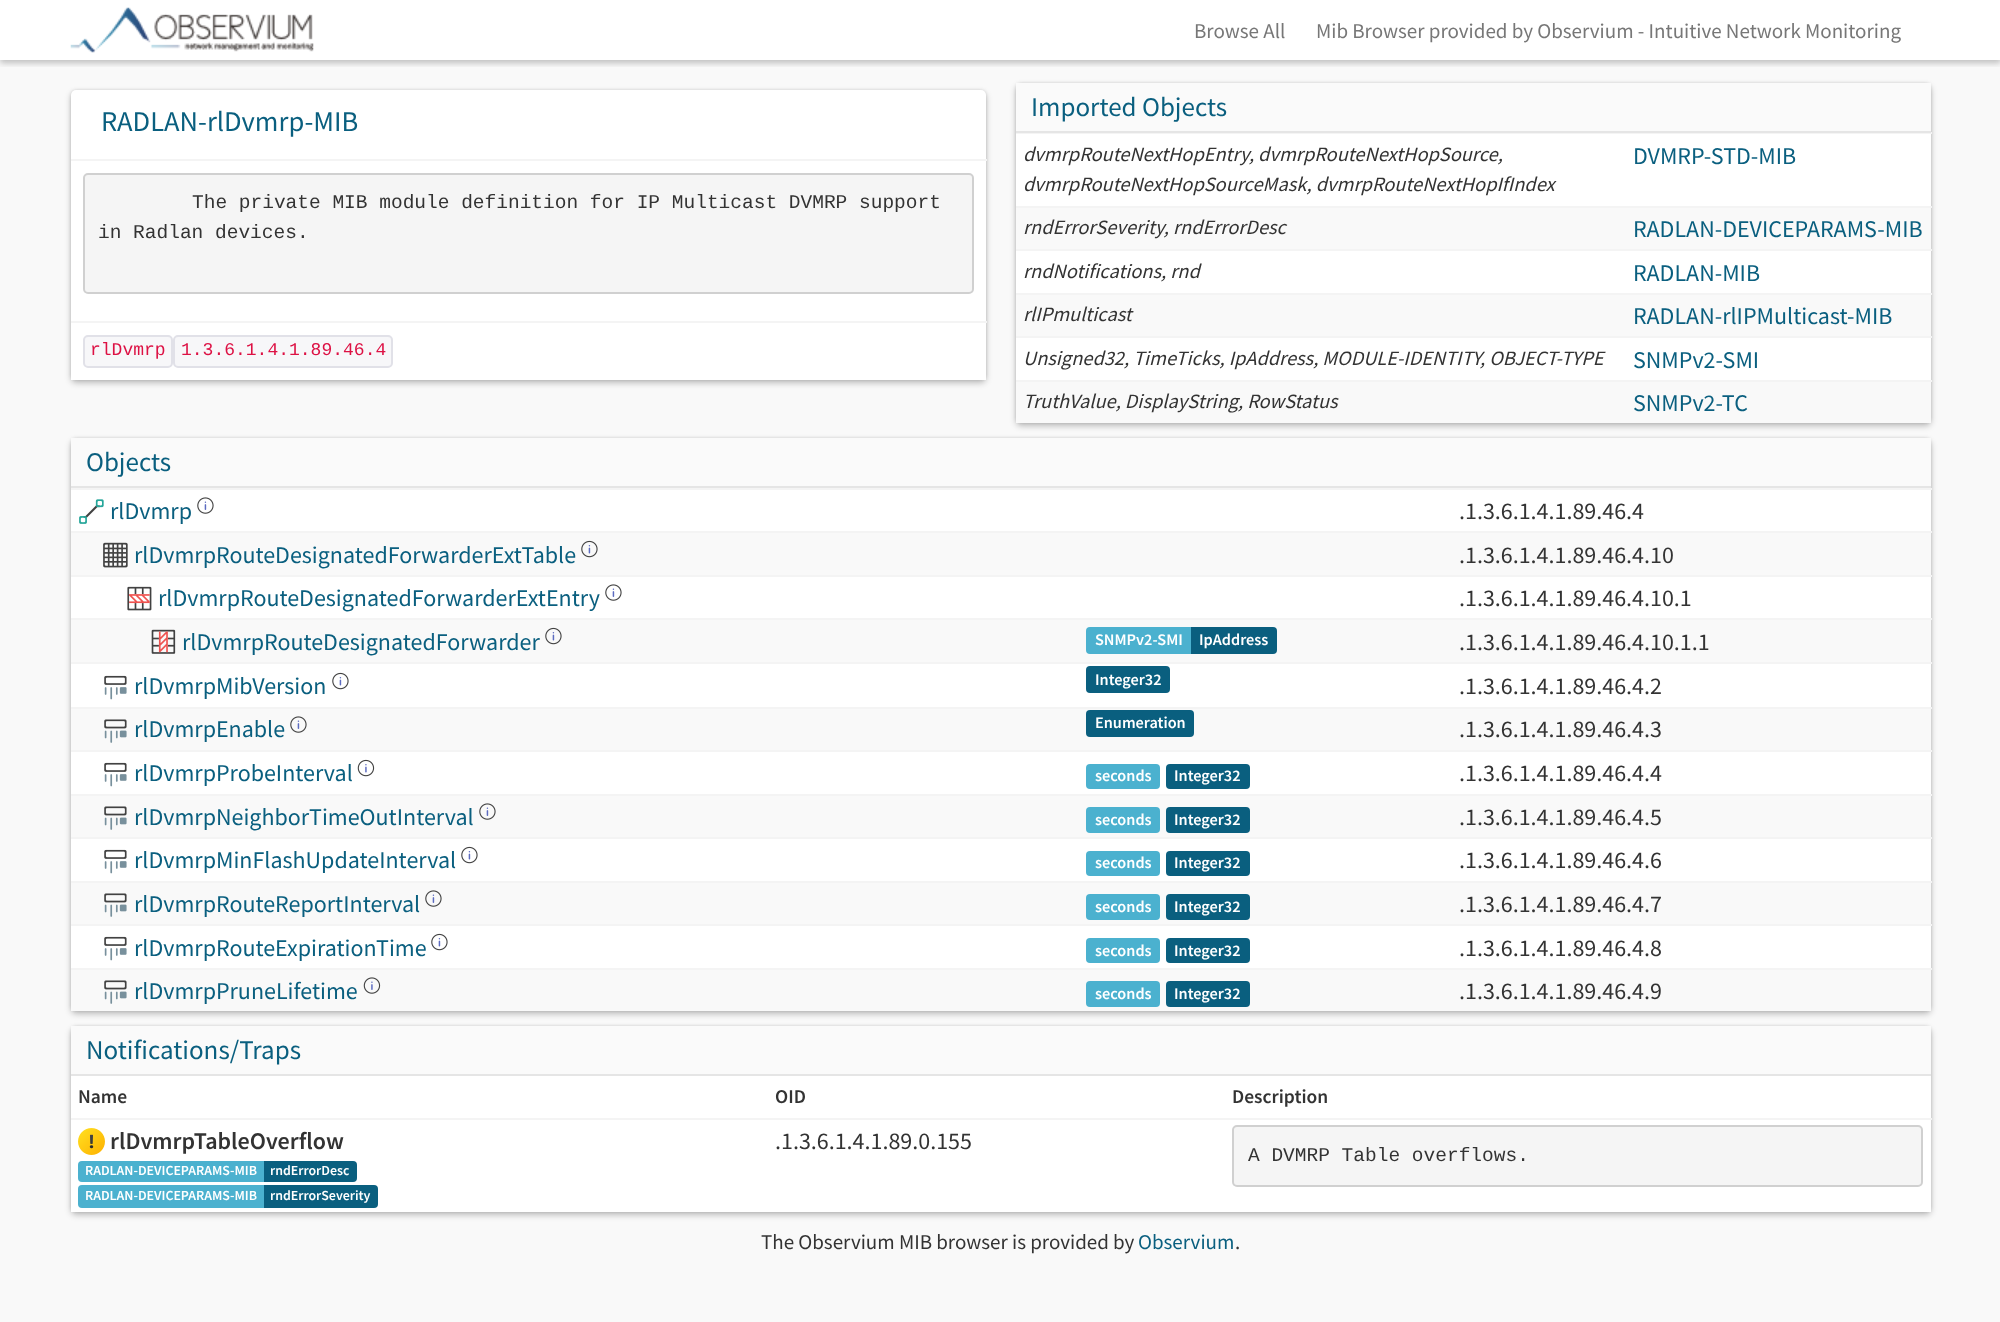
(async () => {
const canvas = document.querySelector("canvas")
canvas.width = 2000
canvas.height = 1322
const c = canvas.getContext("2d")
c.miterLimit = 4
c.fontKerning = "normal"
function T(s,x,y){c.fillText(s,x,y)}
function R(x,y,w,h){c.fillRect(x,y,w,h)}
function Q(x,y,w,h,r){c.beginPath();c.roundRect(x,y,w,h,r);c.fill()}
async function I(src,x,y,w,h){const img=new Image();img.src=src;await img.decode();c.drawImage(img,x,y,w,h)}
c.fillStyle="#f9f9f9"
R(0,0,2000,1322)
c.fillStyle="#fff"
R(0,0,2000,60)
c.save()
c.beginPath()
c.rect(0,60,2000,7)
c.clip()
c.fillStyle="#0000003d"
c.filter="blur(3px)"
c.beginPath()
c.rect(0,3,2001,60)
c.fill()
c.filter="none"
c.restore()
await I("1.png",70,7,244,46)
c.font="21px Source Sans Pro"
c.fillStyle="#777"
T("Browse All",1194,38)
T("Mib Browser provided by Observium - Intuitive Network Monitoring",1316,38)
c.fillStyle="#0000003d"
c.filter="blur(3px)"
c.beginPath()
c.roundRect(71,93,915,290,5)
c.fill()
c.filter="none"
c.fillStyle="#0000001f"
c.filter="blur(1.5px)"
c.beginPath()
c.roundRect(71,90,915,290,5)
c.fill()
c.filter="none"
c.fillStyle="#fff"
Q(71,90,915,290,5)
c.font="28.5px Source Sans Pro"
c.fillStyle="#0a5f7f"
T("RADLAN-rlDvmrp-MIB",101,131)
c.fillStyle="#fff"
R(71,375,915,5)
c.fillStyle="#f4f4f4"
R(71,159,916,2)
c.fillStyle="#f5f5f5"
Q(83,173,891,121,5)
c.beginPath()
c.roundRect(84,174,889,119,4)
c.strokeStyle="#00000026"
c.lineWidth=2
c.stroke()
c.font="19.5px Liberation Mono"
c.fillStyle="#333"
T("The private MIB module definition for IP Multicast DVMRP support",192,208)
T("in Radlan devices.",98,238)
c.fillStyle="#f4f4f4"
R(71,321,916,2)
c.fillStyle="#f7f7f9"
c.beginPath()
c.roundRect(84,336,88,31,4)
c.fill()
c.strokeStyle="#e1e1e8"
c.stroke()
c.font="18px Liberation Mono"
c.fillStyle="#d14"
T("rlDvmrp",90,355)
c.fillStyle="#f7f7f9"
c.beginPath()
c.roundRect(174,336,218,31,4)
c.fill()
c.stroke()
c.fillStyle="#d14"
T("1.3.6.1.4.1.89.46.4",181,355)
c.fillStyle="#0000003d"
c.filter="blur(3px)"
c.beginPath()
c.roundRect(1016,86,915,340,5)
c.fill()
c.filter="none"
c.fillStyle="#0000001f"
c.filter="blur(1.5px)"
c.beginPath()
c.roundRect(1016,83,915,340,5)
c.fill()
c.filter="none"
c.fillStyle="#fafafa"
R(1016,83,915,48)
c.fillStyle="#f4f4f4"
R(1625,132,307,2)
c.fillStyle="#e5e5e5"
R(1016,131,915,2)
c.font="27px Source Sans Pro"
c.fillStyle="#0a5f7f"
T("Imported Objects",1031,116)
c.fillStyle="#fff"
R(1016,134,915,246)
c.fillStyle="#f4f4f4"
R(1016,133,610,1)
c.font="italic 20.4px Source Sans Pro"
c.fillStyle="#333"
T("dvmrpRouteNextHopEntry, dvmrpRouteNextHopSource,",1023,161)
T("dvmrpRouteNextHopSourceMask, dvmrpRouteNextHopIfIndex",1023,191)
c.font="24px Source Sans Pro"
c.fillStyle="#0a5f7f"
T("DVMRP-STD-MIB",1633,164)
c.fillStyle="#f9f9f9"
R(1016,208,915,41)
c.font="italic 20.4px Source Sans Pro"
c.fillStyle="#333"
T("rndErrorSeverity, rndErrorDesc",1023,234)
c.fillStyle="#f4f4f4"
R(1016,206,916,2)
c.font="24px Source Sans Pro"
c.fillStyle="#0a5f7f"
T("RADLAN-DEVICEPARAMS-MIB",1633,237)
c.font="italic 20.4px Source Sans Pro"
c.fillStyle="#333"
T("rndNotifications, rnd",1023,278)
c.fillStyle="#f4f4f4"
R(1016,249,916,2)
c.font="24px Source Sans Pro"
c.fillStyle="#0a5f7f"
T("RADLAN-MIB",1633,281)
c.fillStyle="#f9f9f9"
R(1016,295,915,41)
c.font="italic 20.4px Source Sans Pro"
c.fillStyle="#333"
T("rlIPmulticast",1023,321)
c.fillStyle="#f4f4f4"
R(1016,293,916,2)
c.font="24px Source Sans Pro"
c.fillStyle="#0a5f7f"
T("RADLAN-rlIPMulticast-MIB",1633,324)
c.font="italic 20.4px Source Sans Pro"
c.fillStyle="#333"
T("Unsigned32, TimeTicks, IpAddress, MODULE-IDENTITY, OBJECT-TYPE",1023,365)
c.fillStyle="#f4f4f4"
R(1016,336,916,2)
c.font="24px Source Sans Pro"
c.fillStyle="#0a5f7f"
T("SNMPv2-SMI",1633,368)
c.fillStyle="#f9f9f9"
R(1016,382,915,41)
c.font="italic 20.4px Source Sans Pro"
c.fillStyle="#333"
T("TruthValue, DisplayString, RowStatus",1023,408)
c.fillStyle="#f4f4f4"
R(1016,380,916,2)
c.font="24px Source Sans Pro"
c.fillStyle="#0a5f7f"
T("SNMPv2-TC",1633,411)
c.fillStyle="#0000003d"
c.filter="blur(3px)"
c.beginPath()
c.roundRect(71,441,1860,573,5)
c.fill()
c.filter="none"
c.fillStyle="#0000001f"
c.filter="blur(1.5px)"
c.beginPath()
c.roundRect(71,438,1860,573,5)
c.fill()
c.filter="none"
c.fillStyle="#fafafa"
R(71,438,1860,48)
c.fillStyle="#e5e5e5"
R(71,486,1860,2)
c.font="27px Source Sans Pro"
c.fillStyle="#0a5f7f"
T("Objects",86,471)
c.fillStyle="#fff"
R(71,490,1860,478)
await I("2.png",79,499,25,25)
c.font="24px Source Sans Pro"
c.fillStyle="#0a5f7f"
T("rlDvmrp",110,519)
await I("3.png",197,497,17,17)
c.fillStyle="#f4f4f4"
R(71,488,1861,2)
c.fillStyle="#333"
T(".1.3.6.1.4.1.89.46.4",1459,519)
c.fillStyle="#f9f9f9"
R(71,533,1860,42)
await I("4.png",103,542,25,26)
c.fillStyle="#0a5f7f"
T("rlDvmrpRouteDesignatedForwarderExtTable",134,563)
await I("5.png",581,540,17,18)
c.fillStyle="#f4f4f4"
R(71,531,1861,2)
c.fillStyle="#333"
T(".1.3.6.1.4.1.89.46.4.10",1459,563)
await I("6.png",127,586,25,25)
c.fillStyle="#0a5f7f"
T("rlDvmrpRouteDesignatedForwarderExtEntry",158,606)
await I("3.png",605,584,17,17)
c.fillStyle="#f4f4f4"
R(71,575,1861,2)
c.fillStyle="#333"
T(".1.3.6.1.4.1.89.46.4.10.1",1459,606)
c.fillStyle="#f9f9f9"
R(71,620,1860,42)
await I("7.png",151,629,25,25)
c.fillStyle="#0a5f7f"
T("rlDvmrpRouteDesignatedForwarder",182,650)
await I("5.png",545,627,17,18)
c.fillStyle="#4bb1cf"
c.beginPath()
c.roundRect(1086,627,105,27,[4,0,0,4])
c.fill()
c.font="600 16.25px Source Sans Pro"
c.fillStyle="#fff"
T("SNMPv2-SMI",1095,645)
c.fillStyle="#0a5f7f"
c.beginPath()
c.roundRect(1191,627,86,27,[0,4,4,0])
c.fill()
c.fillStyle="#fff"
T("IpAddress",1199,645)
c.fillStyle="#f4f4f4"
R(71,618,1861,2)
c.font="24px Source Sans Pro"
c.fillStyle="#333"
T(".1.3.6.1.4.1.89.46.4.10.1.1",1459,650)
await I("8.png",104,675,23,25)
c.fillStyle="#0a5f7f"
T("rlDvmrpMibVersion",134,694)
await I("9.png",332,672,17,18)
Q(1086,666,84,27,4)
c.font="600 16.25px Source Sans Pro"
c.fillStyle="#fff"
T("Integer32",1095,685)
c.fillStyle="#f4f4f4"
R(71,662,1861,2)
c.font="24px Source Sans Pro"
c.fillStyle="#333"
T(".1.3.6.1.4.1.89.46.4.2",1459,694)
c.fillStyle="#f9f9f9"
R(71,709,1860,41)
await I("10.png",104,719,23,24)
c.fillStyle="#0a5f7f"
T("rlDvmrpEnable",134,737)
await I("11.png",290,716,17,17)
Q(1086,710,108,27,4)
c.font="600 16.25px Source Sans Pro"
c.fillStyle="#fff"
T("Enumeration",1095,728)
c.fillStyle="#f4f4f4"
R(71,707,1861,2)
c.font="24px Source Sans Pro"
c.fillStyle="#333"
T(".1.3.6.1.4.1.89.46.4.3",1459,737)
await I("8.png",104,762,23,25)
c.fillStyle="#0a5f7f"
T("rlDvmrpProbeInterval",134,781)
await I("12.png",357,759,18,18)
c.fillStyle="#4bb1cf"
Q(1086,764,74,25,4)
c.font="600 16.25px Source Sans Pro"
c.fillStyle="#fff"
T("seconds",1095,781)
c.fillStyle="#0a5f7f"
Q(1166,764,84,25,4)
c.fillStyle="#fff"
T("Integer32",1174,781)
c.fillStyle="#f4f4f4"
R(71,750,1861,2)
c.font="24px Source Sans Pro"
c.fillStyle="#333"
T(".1.3.6.1.4.1.89.46.4.4",1459,781)
c.fillStyle="#f9f9f9"
R(71,796,1860,41)
await I("10.png",104,806,23,24)
c.fillStyle="#0a5f7f"
T("rlDvmrpNeighborTimeOutInterval",134,825)
await I("11.png",479,803,17,17)
c.fillStyle="#4bb1cf"
Q(1086,807,74,26,4)
c.font="600 16.25px Source Sans Pro"
c.fillStyle="#fff"
T("seconds",1095,825)
c.fillStyle="#0a5f7f"
Q(1166,807,84,26,4)
c.fillStyle="#fff"
T("Integer32",1174,825)
c.fillStyle="#f4f4f4"
R(71,794,1861,2)
c.font="24px Source Sans Pro"
c.fillStyle="#333"
T(".1.3.6.1.4.1.89.46.4.5",1459,825)
await I("8.png",104,849,23,25)
c.fillStyle="#0a5f7f"
T("rlDvmrpMinFlashUpdateInterval",134,868)
await I("9.png",461,846,17,18)
c.fillStyle="#4bb1cf"
Q(1086,851,74,25,4)
c.font="600 16.25px Source Sans Pro"
c.fillStyle="#fff"
T("seconds",1095,868)
c.fillStyle="#0a5f7f"
Q(1166,851,84,25,4)
c.fillStyle="#fff"
T("Integer32",1174,868)
c.fillStyle="#f4f4f4"
R(71,837,1861,2)
c.font="24px Source Sans Pro"
c.fillStyle="#333"
T(".1.3.6.1.4.1.89.46.4.6",1459,868)
c.fillStyle="#f9f9f9"
R(71,883,1860,41)
await I("10.png",104,893,23,24)
c.fillStyle="#0a5f7f"
T("rlDvmrpRouteReportInterval",134,912)
await I("11.png",425,890,17,17)
c.fillStyle="#4bb1cf"
Q(1086,894,74,26,4)
c.font="600 16.25px Source Sans Pro"
c.fillStyle="#fff"
T("seconds",1095,912)
c.fillStyle="#0a5f7f"
Q(1166,894,84,26,4)
c.fillStyle="#fff"
T("Integer32",1174,912)
c.fillStyle="#f4f4f4"
R(71,881,1861,2)
c.font="24px Source Sans Pro"
c.fillStyle="#333"
T(".1.3.6.1.4.1.89.46.4.7",1459,912)
await I("8.png",104,936,23,25)
c.fillStyle="#0a5f7f"
T("rlDvmrpRouteExpirationTime",134,956)
await I("9.png",431,933,17,18)
c.fillStyle="#4bb1cf"
Q(1086,938,74,25,4)
c.font="600 16.25px Source Sans Pro"
c.fillStyle="#fff"
T("seconds",1095,956)
c.fillStyle="#0a5f7f"
Q(1166,938,84,25,4)
c.fillStyle="#fff"
T("Integer32",1174,956)
c.fillStyle="#f4f4f4"
R(71,924,1861,2)
c.font="24px Source Sans Pro"
c.fillStyle="#333"
T(".1.3.6.1.4.1.89.46.4.8",1459,956)
c.fillStyle="#f9f9f9"
R(71,970,1860,41)
await I("10.png",104,980,23,24)
c.fillStyle="#0a5f7f"
T("rlDvmrpPruneLifetime",134,999)
await I("13.png",363,977,18,17)
c.fillStyle="#4bb1cf"
Q(1086,981,74,26,4)
c.font="600 16.25px Source Sans Pro"
c.fillStyle="#fff"
T("seconds",1095,999)
c.fillStyle="#0a5f7f"
Q(1166,981,84,26,4)
c.fillStyle="#fff"
T("Integer32",1174,999)
c.fillStyle="#f4f4f4"
R(71,968,1861,2)
c.font="24px Source Sans Pro"
c.fillStyle="#333"
T(".1.3.6.1.4.1.89.46.4.9",1459,999)
c.fillStyle="#0000003d"
c.filter="blur(3px)"
c.beginPath()
c.roundRect(71,1029,1860,186,5)
c.fill()
c.filter="none"
c.fillStyle="#0000001f"
c.filter="blur(1.5px)"
c.beginPath()
c.roundRect(71,1026,1860,186,5)
c.fill()
c.filter="none"
c.fillStyle="#fafafa"
R(71,1026,1860,48)
c.fillStyle="#e5e5e5"
R(71,1074,1860,2)
c.font="27px Source Sans Pro"
c.fillStyle="#0a5f7f"
T("Notifications/Traps",86,1059)
c.fillStyle="#fff"
R(71,1076,1860,136)
c.font="600 19.5px Source Sans Pro"
c.fillStyle="#333"
T("Name",78,1103)
T("OID",775,1103)
T("Description",1232,1103)
await I("14.png",78,1128,27,27)
c.font="600 24px Source Sans Pro"
T("rlDvmrpTableOverflow",110,1149)
c.fillStyle="#4bb1cf"
c.beginPath()
c.roundRect(78,1161,186,21,[4,0,0,4])
c.fill()
c.font="600 13.9px Source Sans Pro"
c.fillStyle="#fff"
T("RADLAN-DEVICEPARAMS-MIB",85,1175)
c.fillStyle="#0a5f7f"
c.beginPath()
c.roundRect(264,1161,93,21,[0,4,4,0])
c.fill()
c.fillStyle="#fff"
T("rndErrorDesc",270,1175)
c.fillStyle="#4bb1cf"
c.beginPath()
c.roundRect(78,1185,186,23,[4,0,0,4])
c.fill()
c.fillStyle="#fff"
T("RADLAN-DEVICEPARAMS-MIB",85,1200)
c.fillStyle="#0a5f7f"
c.beginPath()
c.roundRect(264,1185,114,23,[0,4,4,0])
c.fill()
c.fillStyle="#fff"
T("rndErrorSeverity",270,1200)
c.font="24px Source Sans Pro"
c.fillStyle="#333"
T(".1.3.6.1.4.1.89.0.155",775,1149)
c.fillStyle="#f4f4f4"
R(71,1118,1861,2)
c.fillStyle="#f5f5f5"
Q(1232,1125,691,62,5)
c.beginPath()
c.roundRect(1233,1126,689,60,4)
c.strokeStyle="#00000026"
c.stroke()
c.font="19.5px Liberation Mono"
c.fillStyle="#333"
T("A DVMRP Table overflows.",1248,1161)
c.font="21px Source Sans Pro"
T("The Observium MIB browser is provided by",761,1249)
c.fillStyle="#0a5f7f"
T("Observium",1138,1249)
c.fillStyle="#333"
T(".",1235,1249)
})()
